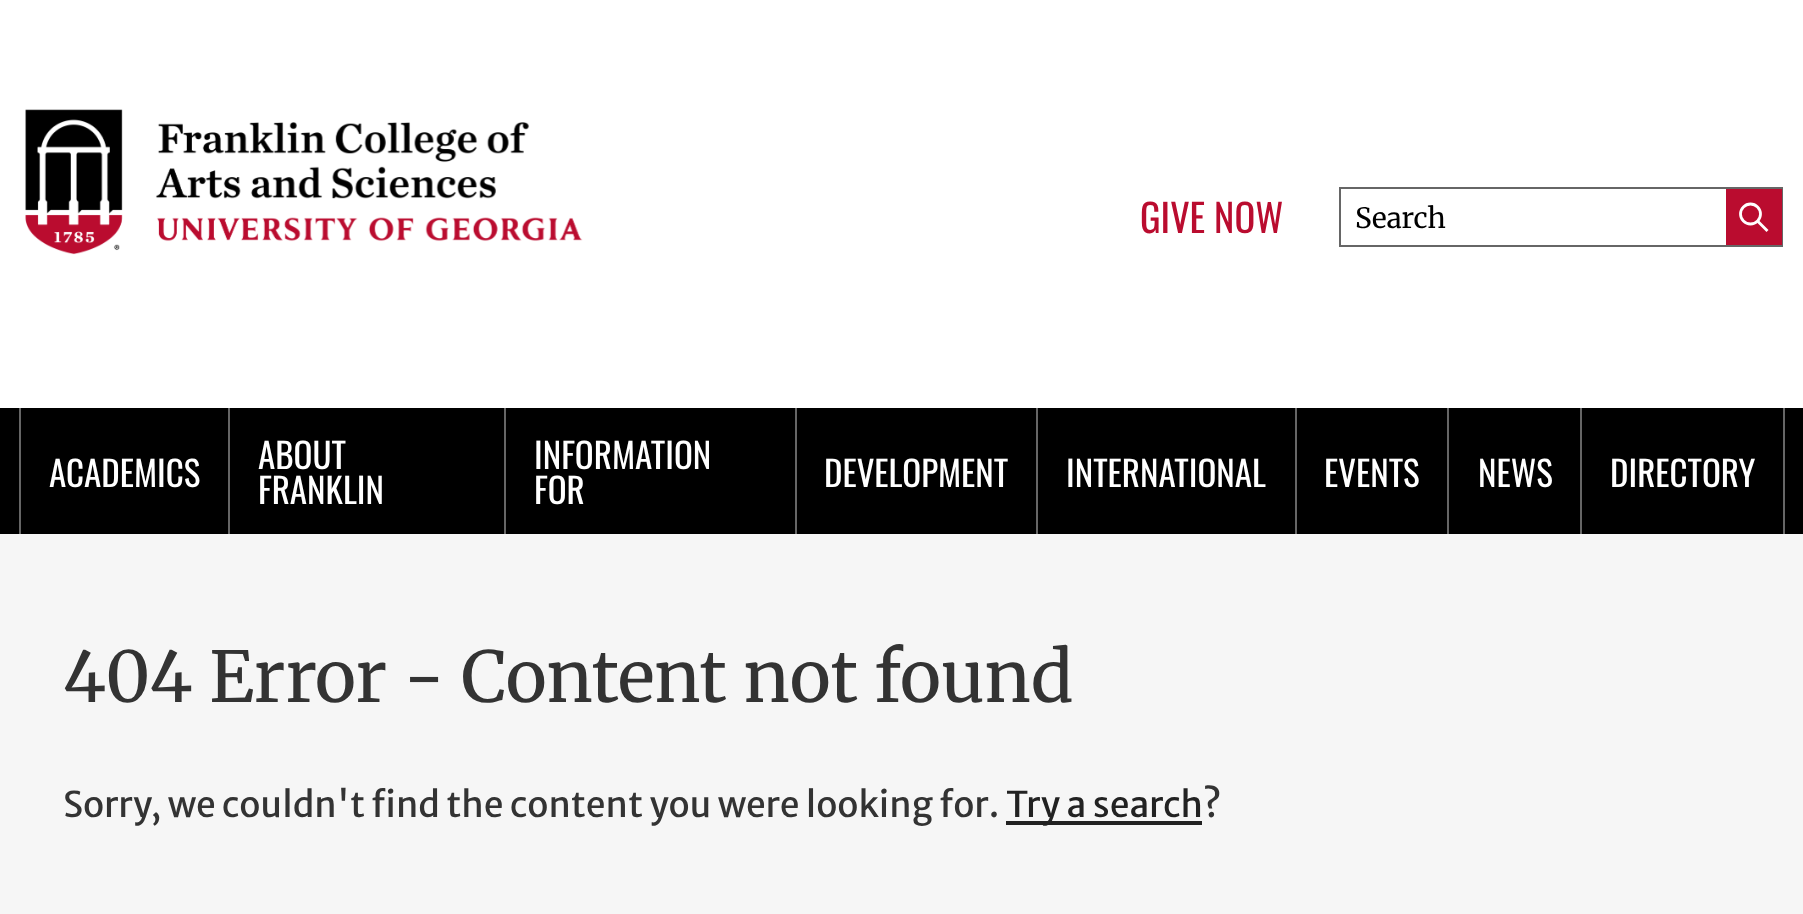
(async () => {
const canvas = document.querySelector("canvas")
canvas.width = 1803
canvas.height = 914
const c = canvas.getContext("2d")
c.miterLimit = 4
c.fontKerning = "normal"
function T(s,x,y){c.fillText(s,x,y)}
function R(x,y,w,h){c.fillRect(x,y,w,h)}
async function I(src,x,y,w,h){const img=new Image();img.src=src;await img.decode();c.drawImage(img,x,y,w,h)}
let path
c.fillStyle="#fff"
R(0,0,1803,914)
await I("1.png",25,109,558,146)
c.font="38.5px Oswald"
c.fillStyle="#ba0c2f"
T("GIVE NOW",1140,233)
c.strokeStyle="#666"
c.lineWidth=2
c.strokeRect(1340,188,442,58)
c.font="300 28px Merriweather"
c.fillStyle="#000"
T("Search",1355,228)
c.fillStyle="#ba0c2f"
R(1726,189,56,56)
c.beginPath()
c.arc(1750.5,214,10,0,7)
c.strokeStyle="#fff"
c.lineWidth=2.8
c.stroke()
path = new Path2D("M1757.5 221l10 10")
c.stroke(path)
c.fillStyle="#000"
R(0,408,1803,126)
c.fillStyle="#666"
path = new Path2D("M19 408v126h1763h-1761v-126z")
c.fill(path)
path = new Path2D("M23 534h1762v-126h-2v126z")
c.fill(path)
c.font="35px Oswald"
c.fillStyle="#fff"
T("ACADEMICS",49,487)
c.fillStyle="#666"
R(228,408,2,126)
c.fillStyle="#fff"
T("ABOUT",258,469)
T("FRANKLIN",258,504)
c.fillStyle="#666"
R(504,408,2,126)
c.fillStyle="#fff"
T("INFORMATION",534,469)
T("FOR",534,504)
c.fillStyle="#666"
R(795,408,2,126)
c.fillStyle="#fff"
T("DEVELOPMENT",824,487)
c.fillStyle="#666"
R(1036,408,2,126)
c.fillStyle="#fff"
T("INTERNATIONAL",1066,487)
c.fillStyle="#666"
R(1295,408,2,126)
c.fillStyle="#fff"
T("EVENTS",1324,487)
c.fillStyle="#666"
R(1447,408,2,126)
c.fillStyle="#fff"
T("NEWS",1478,487)
c.fillStyle="#666"
R(1580,408,2,126)
c.fillStyle="#fff"
T("DIRECTORY",1610,487)
c.fillStyle="#f6f6f6"
R(0,534,1803,380)
c.font="300 70px Merriweather"
c.fillStyle="#333"
T("404 Error - Content not found",63,702)
c.font="35.45px Merriweather Sans"
T("Sorry, we couldn't find the content you were looking for.",63,817)
c.fillStyle="#222"
R(1006,821,196,4)
T("Try a search",1006,817)
c.fillStyle="#333"
T("?",1203,817)
})()
